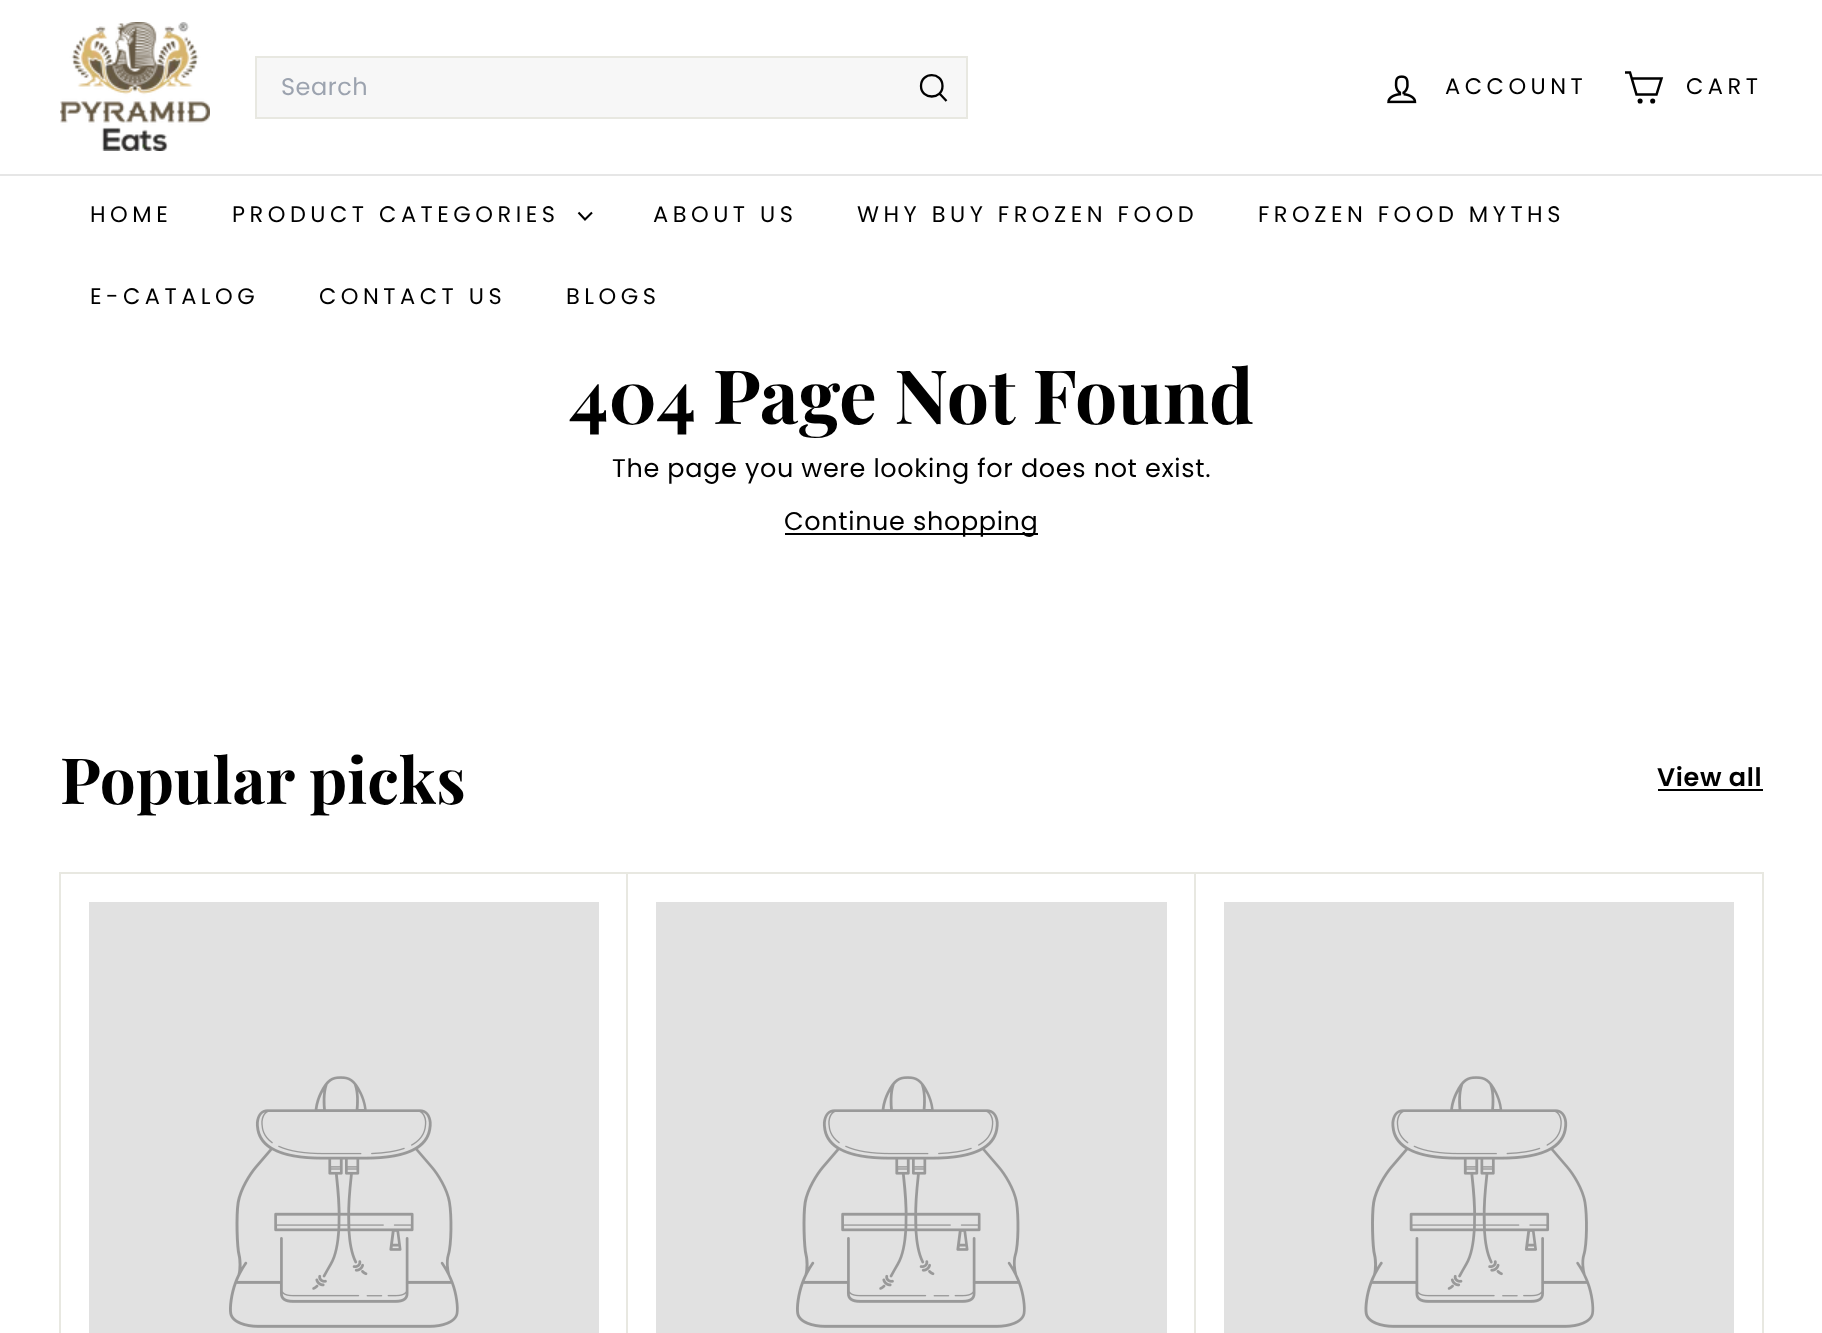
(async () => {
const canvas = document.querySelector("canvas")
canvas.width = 1822
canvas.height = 1333
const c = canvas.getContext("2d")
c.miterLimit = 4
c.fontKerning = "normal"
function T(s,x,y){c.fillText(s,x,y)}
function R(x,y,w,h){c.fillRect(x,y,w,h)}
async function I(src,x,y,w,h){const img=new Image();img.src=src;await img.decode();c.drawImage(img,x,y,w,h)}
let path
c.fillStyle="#fff"
R(0,0,1822,1333)
await I("1.png",60,22,150,129)
c.fillStyle="#f7f7f7"
c.beginPath()
c.rect(256,57,711,61)
c.fill()
c.strokeStyle="#e8e8e1"
c.lineWidth=2
c.stroke()
c.letterSpacing="0.5px"
c.font="24px Poppins"
c.fillStyle="#9ca3af"
T("Search",281,95)
path = new Path2D("M942.5 86c0 14-21.5 14-21.5 0c0-14.5 21.5-14.5 21.5 0m4 15l-7-7.5")
c.strokeStyle="#000"
c.lineWidth=2.3
c.stroke(path)
await I("2.png",1387,75,30,29)
c.letterSpacing="4.5px"
c.font="22.5px Poppins"
c.fillStyle="#000"
T("ACCOUNT",1445,94)
path = new Path2D("M1632 78.5h29.5l-5 16h-20l-6.5-22h-5")
c.lineWidth=2.5
c.stroke(path)
c.beginPath()
c.arc(1640.1,101,1.3,0,7)
c.stroke()
c.beginPath()
c.arc(1652.7,101,1.3,0,7)
c.stroke()
T("CART",1686,94)
c.fillStyle="#e6e6e6"
R(0,174,1822,2)
c.fillStyle="#000"
T("HOME",90,222)
T("PRODUCT CATEGORIES",232,222)
path = new Path2D("M578.5 212.5l6.5 7l7-7")
c.lineWidth=2.1
c.stroke(path)
T("ABOUT US",653,222)
T("WHY BUY FROZEN FOOD",857,222)
T("FROZEN FOOD MYTHS",1258,222)
T("E-CATALOG",90,304)
T("CONTACT US",319,304)
T("BLOGS",566,304)
c.letterSpacing="0px"
c.font="bold 75px Playfair Display"
T("404 Page Not Found",569,424)
c.letterSpacing="0.65px"
c.font="25.5px Poppins"
T("The page you were looking for does not exist.",612,477)
R(785,533,253,2)
T("Continue shopping",784,530)
c.letterSpacing="0px"
c.font="bold 63.75px Playfair Display"
T("Popular picks",60,804)
c.letterSpacing="0.65px"
c.font="600 25.5px Poppins"
T("View all",1657,786)
R(1658,789,105,2)
c.fillStyle="#e1e1e1"
R(89,902,510,431)
await I("3.png",229,1076,230,252)
c.strokeStyle="#e8e8e1"
c.lineWidth=2
c.strokeRect(60,873,568,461)
c.fillStyle="#fff"
R(628,874,1,459)
c.fillStyle="#e1e1e1"
R(656,902,511,431)
await I("3.png",796,1076,230,252)
c.strokeRect(627,873,569,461)
c.fillStyle="#fff"
R(1196,874,1,459)
c.fillStyle="#e1e1e1"
R(1224,902,510,431)
await I("4.png",1364,1076,231,252)
c.strokeRect(1195,873,568,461)
})()
